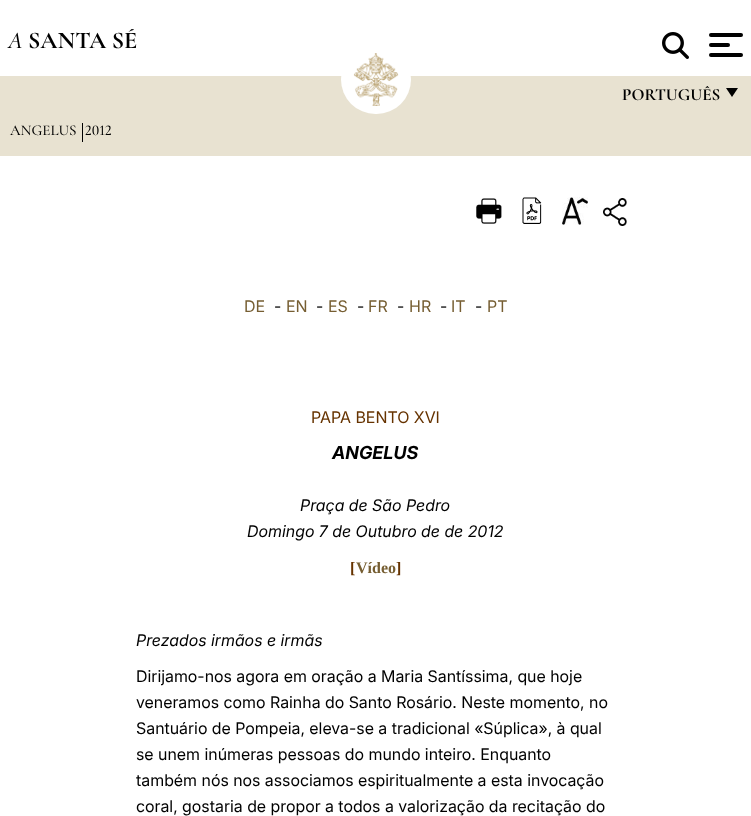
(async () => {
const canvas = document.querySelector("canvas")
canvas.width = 751
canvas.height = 816
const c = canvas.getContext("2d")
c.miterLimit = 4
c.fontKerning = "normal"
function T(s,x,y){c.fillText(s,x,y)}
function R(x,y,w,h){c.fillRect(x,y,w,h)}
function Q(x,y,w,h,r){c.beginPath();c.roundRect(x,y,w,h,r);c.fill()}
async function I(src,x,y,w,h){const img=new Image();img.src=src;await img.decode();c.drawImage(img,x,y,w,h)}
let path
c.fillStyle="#fff"
R(0,0,751,816)
c.font="italic 500 24px Cormorant Garamond"
c.fillStyle="#000"
T("A",8,48)
c.font="bold 24px Cormorant Garamond"
T("SANTA SÉ",28,48)
c.fillStyle="#e8e2d1"
R(0,76,751,80)
c.fillStyle="#fff"
Q(341,45,70,69,34.5)
await I("1.png",353,53,46,53)
await I("2.png",662,32,27,27)
c.fillStyle="#000"
Q(709,33,34,4,2)
Q(709,43,21,4,2)
Q(709,53,34,4,2)
c.font="bold 17px Cormorant Garamond"
T("PORTUGUÊS",622,100)
path = new Path2D("M726 88h12l-6 9z")
c.fill(path)
c.font="500 15px Cormorant Garamond"
T("ANGELUS",10,135)
R(82,123,1,19)
c.font="500 15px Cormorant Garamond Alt"
T("2012",85,135)
await I("3.png",476,198,26,26)
await I("4.png",522,197,20,27)
await I("5.png",562,197,26,28)
await I("6.png",603,198,24,28)
c.font="16px Inter"
c.fillStyle="#765e32"
T("DE",244,312)
c.font="16px 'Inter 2'"
c.fillStyle="#000"
T("-",274,312)
c.font="16px Inter"
c.fillStyle="#765e32"
T("EN",286,312)
c.font="16px 'Inter 2'"
c.fillStyle="#000"
T("-",316,312)
c.font="16px Inter"
c.fillStyle="#765e32"
T("ES",328,312)
c.font="16px 'Inter 2'"
c.fillStyle="#000"
T("-",357,312)
c.font="16px Inter"
c.fillStyle="#765e32"
T("FR",368,312)
c.font="16px 'Inter 2'"
c.fillStyle="#000"
T("-",397,312)
c.font="16px Inter"
c.fillStyle="#765e32"
T("HR",409,312)
c.font="16px 'Inter 2'"
c.fillStyle="#000"
T("-",440,312)
c.fillStyle="#765e32"
T("IT",451,312)
c.fillStyle="#000"
T("-",475,312)
c.fillStyle="#765e32"
T("PT",487,312)
c.fillStyle="#630"
T("PAPA BENTO XVI",311,423)
c.font="italic bold 18px Inter"
c.fillStyle="#000"
T("ANGELUS",332,459)
c.font="italic 16px Inter"
T("Praça de São Pedro",300,511)
T("Domingo 7 de Outubro de de 2012",247,537)
c.font="bold 16px Liberation Serif"
c.fillStyle="#630"
T("[",350,573)
c.fillStyle="#765e32"
T("Vídeo",356,573)
c.fillStyle="#630"
T("]",396,573)
c.font="italic 16px Inter"
c.fillStyle="#000"
T("Prezados irmãos e irmãs",136,646)
c.font="16px 'Inter 2'"
T("Dirijamo-nos agora em oração a Maria Santíssima, que hoje",136,682)
T("veneramos como Rainha do Santo Rosário. Neste momento, no",136,708)
T("Santuário de Pompeia, eleva-se a tradicional «Súplica», à qual",136,734)
T("se unem inúmeras pessoas do mundo inteiro. Enquanto",136,760)
T("também nós nos associamos espiritualmente a esta invocação",136,786)
T("coral, gostaria de propor a todos a valorização da recitação do",136,812)
})()
